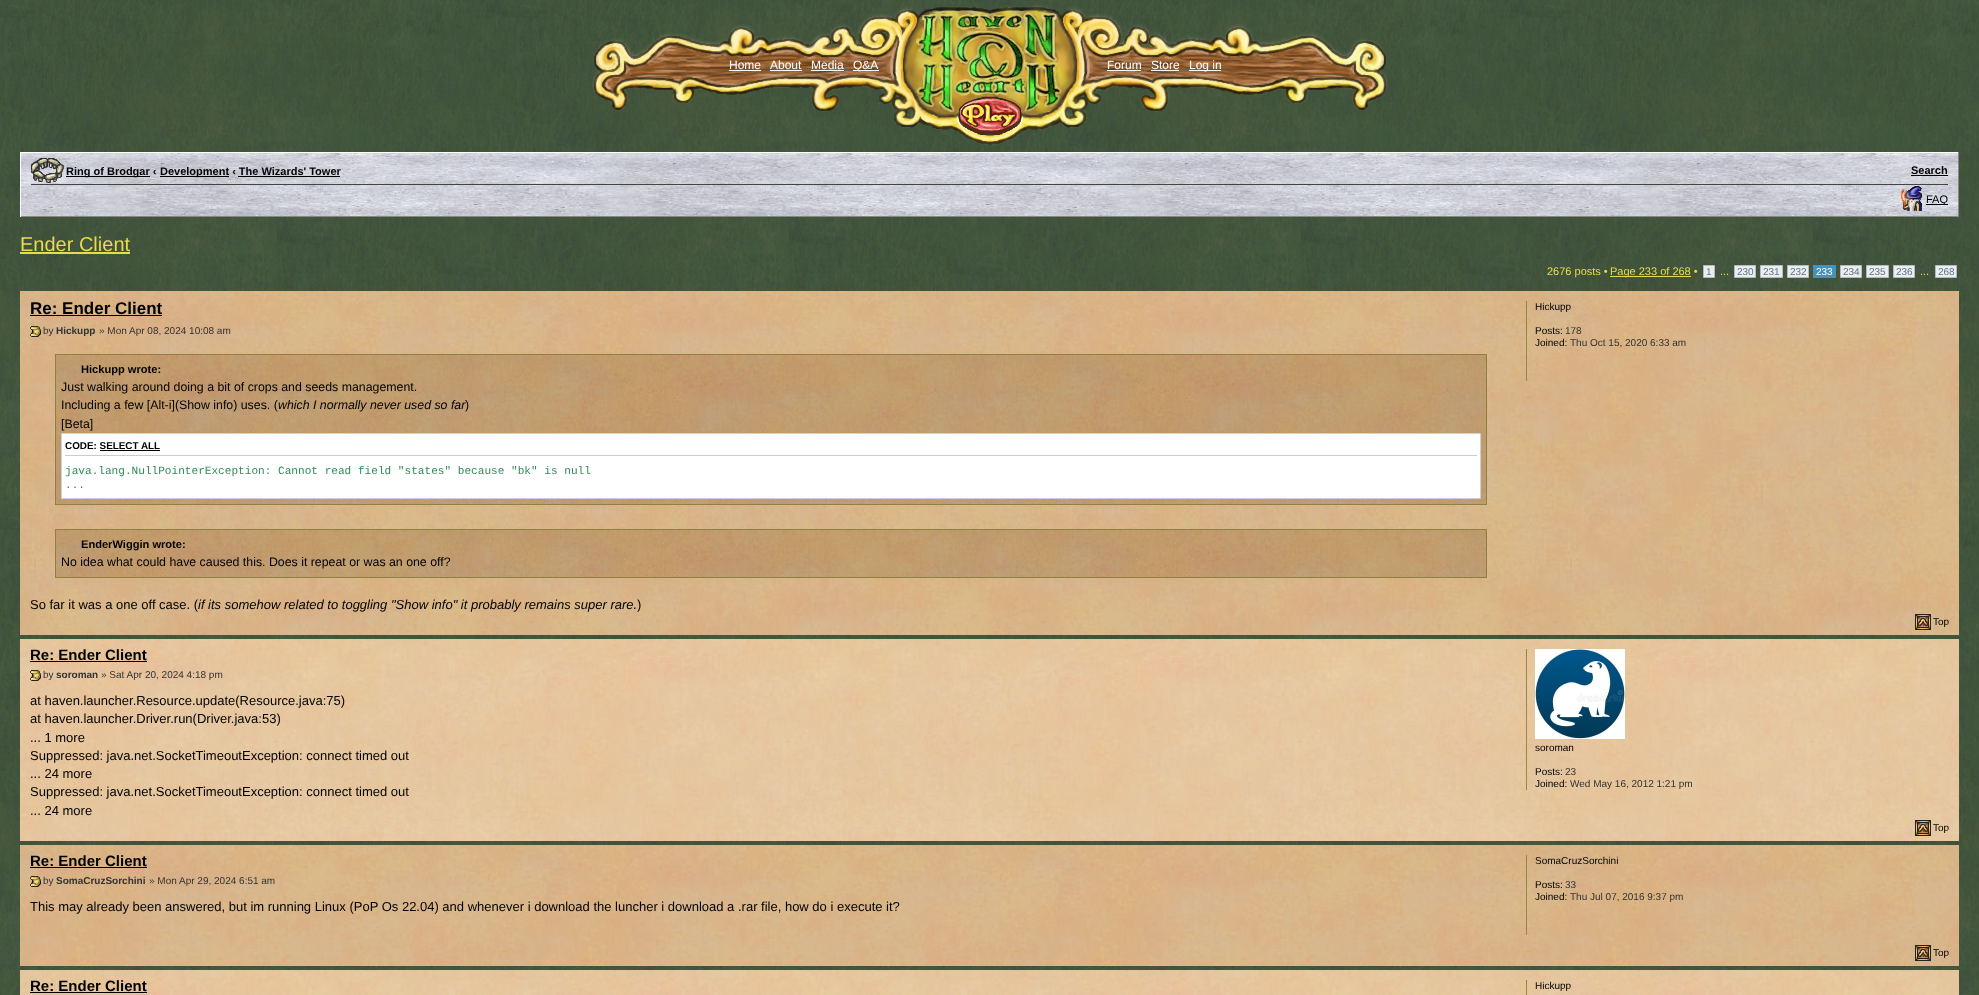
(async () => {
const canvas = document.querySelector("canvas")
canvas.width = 1979
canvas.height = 995
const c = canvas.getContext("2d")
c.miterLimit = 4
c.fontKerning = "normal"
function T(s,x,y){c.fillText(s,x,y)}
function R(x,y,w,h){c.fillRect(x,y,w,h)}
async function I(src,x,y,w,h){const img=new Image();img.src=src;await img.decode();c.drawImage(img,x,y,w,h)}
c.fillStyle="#fff"
R(0,0,1979,995)
await I("1.png",0,0,1979,995)
await I("2.png",592,13,297,99)
c.font="12px Liberation Sans"
T("Home",729,69)
R(729,70,32,1)
T("About",770,69)
R(770,70,32,1)
T("Media",811,69)
R(811,70,33,1)
R(853,70,26,1)
T("Q&A",853,69)
await I("3.png",889,5,202,140)
await I("4.png",1091,13,297,99)
T("Forum",1107,69)
R(1107,70,34,1)
T("Store",1151,69)
R(1151,70,28,1)
R(1189,70,32,1)
T("Log in",1189,69)
await I("5.png",21,153,1937,63)
R(20,152,1939,1)
c.fillStyle="#888"
R(1958,152,1,65)
R(20,216,1939,1)
c.fillStyle="#fff"
R(20,152,1,65)
c.fillStyle="#444"
R(31,184,1917,1)
await I("6.png",31,158,33,25)
c.fillStyle="#000"
R(66,176,84,1)
c.font="bold 11px Liberation Sans"
T("Ring of Brodgar ‹",66,175)
R(160,176,69,1)
T("Development ‹ The Wizards' Tower",160,175)
R(238,176,102,1)
T("Search",1911,174)
R(1911,175,37,1)
await I("7.png",1899,186,23,25)
R(1926,204,22,1)
c.font="11px Liberation Sans"
T("FAQ",1926,203)
c.font="20px Liberation Sans"
c.fillStyle="#e7db4f"
T("Ender Client",20,251)
R(20,252,110,2)
c.font="11px Liberation Sans"
T("2676 posts •",1547,275)
R(1610,276,81,1)
T("Page 233 of 268 •",1610,275)
c.fillStyle="#ecedee"
c.beginPath()
c.rect(1703.5,265.5,11,12)
c.fill()
c.strokeStyle="#b4bac0"
c.stroke()
c.font="10px Liberation Sans"
c.fillStyle="#5c758c"
T("1",1706,275)
c.font="11px Liberation Sans"
c.fillStyle="#e7db4f"
T("...",1720,275)
c.fillStyle="#ecedee"
c.beginPath()
c.rect(1734.5,265.5,21,12)
c.fill()
c.stroke()
c.font="10px Liberation Sans"
c.fillStyle="#5c758c"
T("230",1737,275)
c.fillStyle="#ecedee"
c.beginPath()
c.rect(1760.5,265.5,22,12)
c.fill()
c.stroke()
c.fillStyle="#5c758c"
T("231",1763,275)
c.fillStyle="#ecedee"
c.beginPath()
c.rect(1787.5,265.5,21,12)
c.fill()
c.stroke()
c.fillStyle="#5c758c"
T("232",1790,275)
c.fillStyle="#4692bf"
R(1813,265,23,13)
c.fillStyle="#fff"
T("233",1816,275)
c.fillStyle="#ecedee"
c.beginPath()
c.rect(1840.5,265.5,21,12)
c.fill()
c.stroke()
c.fillStyle="#5c758c"
T("234",1843,275)
c.fillStyle="#ecedee"
c.beginPath()
c.rect(1866.5,265.5,22,12)
c.fill()
c.stroke()
c.fillStyle="#5c758c"
T("235",1869,275)
c.fillStyle="#ecedee"
c.beginPath()
c.rect(1893.5,265.5,21,12)
c.fill()
c.stroke()
c.fillStyle="#5c758c"
T("236",1896,275)
c.font="11px Liberation Sans"
c.fillStyle="#e7db4f"
T("...",1920,275)
c.fillStyle="#ecedee"
c.beginPath()
c.rect(1935.5,265.5,21,12)
c.fill()
c.stroke()
c.font="10px Liberation Sans"
c.fillStyle="#5c758c"
T("268",1938,275)
await I("8.png",20,291,1939,344)
c.font="bold 17px Liberation Sans"
c.fillStyle="#000"
T("Re: Ender Client",30,314)
R(30,315,132,1)
await I("9.png",30,326,11,11)
c.font="10px Liberation Sans"
c.fillStyle="#333"
T("by",43,334)
c.font="bold 10px Liberation Sans"
T("Hickupp",56,334)
c.font="10px Liberation Sans"
T("» Mon Apr 08, 2024 10:08 am",99,334)
await I("10.png",56,355,1430,149)
c.strokeStyle="#908040"
c.strokeRect(55.5,354.5,1431,150)
c.font="bold 11.1px Liberation Sans"
c.fillStyle="#000"
T("Hickupp wrote:",81,373)
c.font="12.35px Liberation Sans"
T("Just walking around doing a bit of crops and seeds management.",61,391)
T("Including a few [Alt-i](Show info) uses. (",61,409)
c.font="italic 12.35px Liberation Sans"
T("which I normally never used so far",278,409)
c.font="12.35px Liberation Sans"
T(")",465,409)
T("[Beta]",61,428)
c.fillStyle="#fff"
c.beginPath()
c.rect(61.5,433.5,1419,65)
c.fill()
c.strokeStyle="#c9d2d8"
c.stroke()
c.fillStyle="#ccc"
R(65,455,1412,1)
c.font="bold 9.9px Liberation Sans"
c.fillStyle="#000"
T("CODE: SELECT ALL",65,449)
R(100,450,60,1)
c.font="11.1px Liberation Mono"
c.fillStyle="#2e8b57"
T("java.lang.NullPointerException: Cannot read field \"states\" because \"bk\" is null",65,474)
T("...",65,488)
await I("11.png",56,530,1430,47)
c.strokeStyle="#908040"
c.strokeRect(55.5,529.5,1431,48)
c.font="bold 11.1px Liberation Sans"
c.fillStyle="#000"
T("EnderWiggin wrote:",81,548)
c.font="12.35px Liberation Sans"
T("No idea what could have caused this. Does it repeat or was an one off?",61,566)
c.font="13px Liberation Sans"
T("So far it was a one off case. (",30,609)
c.font="italic 13px Liberation Sans"
T("if its somehow related to toggling \"Show info\" it probably remains super rare.",198,609)
c.font="13px Liberation Sans"
T(")",637,609)
c.fillStyle="#984"
R(1526,301,1,80)
c.font="10px Liberation Sans"
c.fillStyle="#000"
T("Hickupp",1535,310)
T("Posts:",1535,334)
c.fillStyle="#333"
T("178",1565,334)
c.fillStyle="#000"
T("Joined:",1535,346)
c.fillStyle="#333"
T("Thu Oct 15, 2020 6:33 am",1570,346)
await I("12.png",1915,614,16,16)
c.fillStyle="#000"
T("Top",1933,625)
await I("13.png",20,639,1939,202)
c.font="bold 15px Liberation Sans"
T("Re: Ender Client",30,660)
R(30,661,117,1)
await I("14.png",30,670,11,11)
c.font="10px Liberation Sans"
c.fillStyle="#333"
T("by",43,678)
c.font="bold 10px Liberation Sans"
T("soroman",56,678)
c.font="10px Liberation Sans"
T("» Sat Apr 20, 2024 4:18 pm",101,678)
c.font="13px Liberation Sans"
c.fillStyle="#000"
T("at haven.launcher.Resource.update(Resource.java:75)",30,705)
T("at haven.launcher.Driver.run(Driver.java:53)",30,723)
T("... 1 more",30,742)
T("Suppressed: java.net.SocketTimeoutException: connect timed out",30,760)
T("... 24 more",30,778)
T("Suppressed: java.net.SocketTimeoutException: connect timed out",30,796)
T("... 24 more",30,815)
c.fillStyle="#984"
R(1526,649,1,141)
await I("15.png",1535,649,90,90)
c.font="10px Liberation Sans"
c.fillStyle="#000"
T("soroman",1535,751)
T("Posts:",1535,775)
c.fillStyle="#333"
T("23",1565,775)
c.fillStyle="#000"
T("Joined:",1535,787)
c.fillStyle="#333"
T("Wed May 16, 2012 1:21 pm",1570,787)
await I("12.png",1915,820,16,16)
c.fillStyle="#000"
T("Top",1933,831)
await I("16.png",20,845,1939,121)
c.font="bold 15px Liberation Sans"
T("Re: Ender Client",30,866)
R(30,867,117,1)
await I("17.png",30,876,11,11)
c.font="10px Liberation Sans"
c.fillStyle="#333"
T("by",43,884)
c.font="bold 10px Liberation Sans"
T("SomaCruzSorchini",56,884)
c.font="10px Liberation Sans"
T("» Mon Apr 29, 2024 6:51 am",149,884)
c.font="13px Liberation Sans"
c.fillStyle="#000"
T("This may already been answered, but im running Linux (PoP Os 22.04) and whenever i download the luncher i download a .rar file, how do i execute it?",30,911)
c.fillStyle="#984"
R(1526,855,1,80)
c.font="10px Liberation Sans"
c.fillStyle="#000"
T("SomaCruzSorchini",1535,864)
T("Posts:",1535,888)
c.fillStyle="#333"
T("33",1565,888)
c.fillStyle="#000"
T("Joined:",1535,900)
c.fillStyle="#333"
T("Thu Jul 07, 2016 9:37 pm",1570,900)
await I("12.png",1915,945,16,16)
c.fillStyle="#000"
T("Top",1933,956)
await I("18.png",20,970,1939,25)
c.font="bold 15px Liberation Sans"
T("Re: Ender Client",30,991)
R(30,992,117,1)
c.fillStyle="#984"
R(1526,980,1,15)
c.font="10px Liberation Sans"
c.fillStyle="#000"
T("Hickupp",1535,989)
})()
